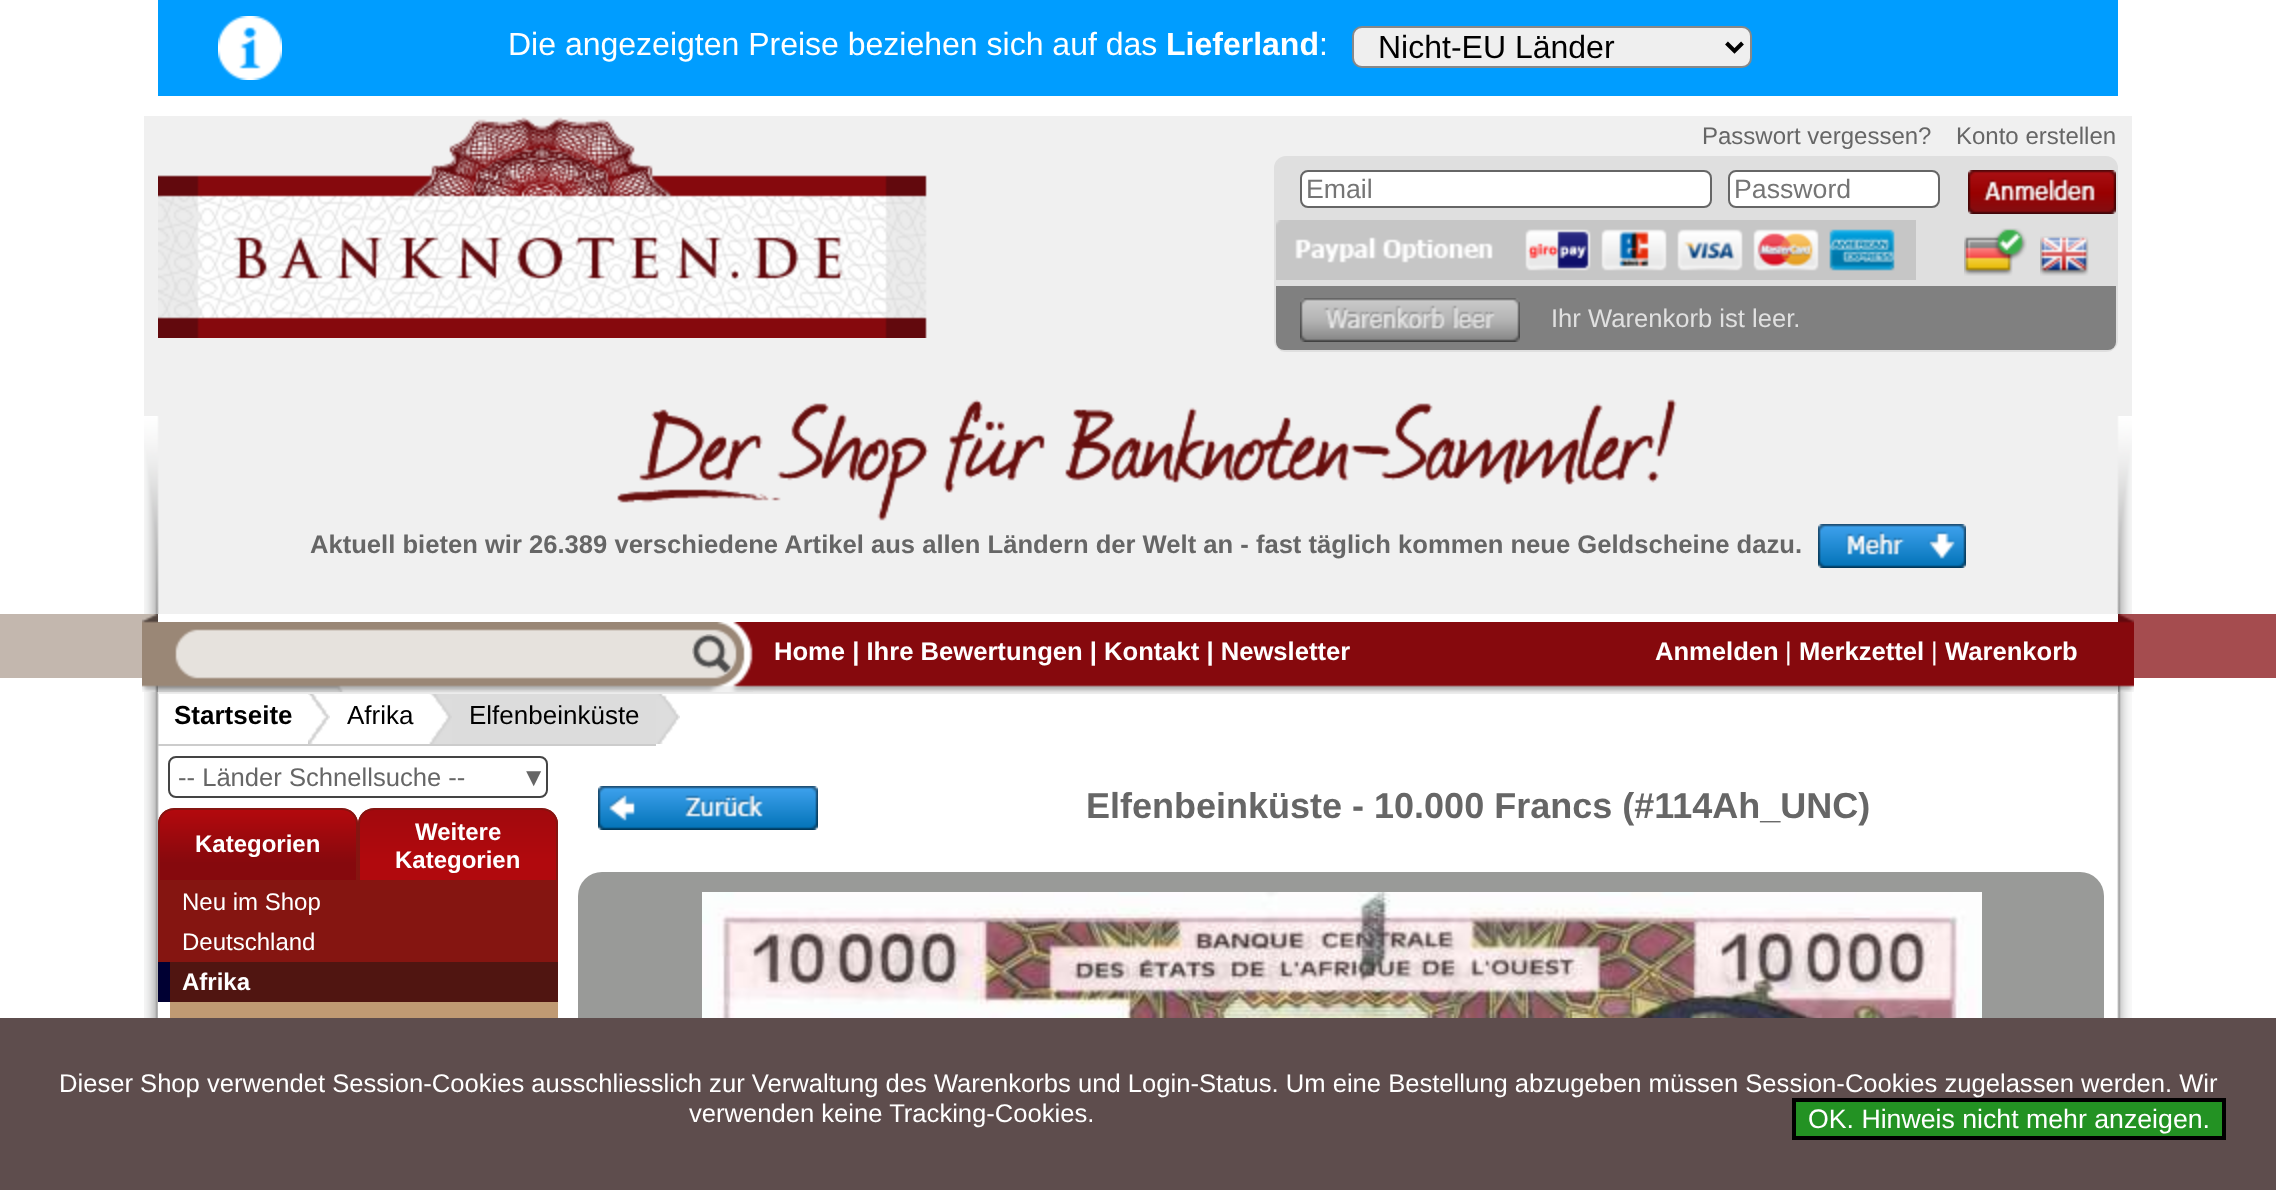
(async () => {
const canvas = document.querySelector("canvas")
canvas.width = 2276
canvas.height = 1190
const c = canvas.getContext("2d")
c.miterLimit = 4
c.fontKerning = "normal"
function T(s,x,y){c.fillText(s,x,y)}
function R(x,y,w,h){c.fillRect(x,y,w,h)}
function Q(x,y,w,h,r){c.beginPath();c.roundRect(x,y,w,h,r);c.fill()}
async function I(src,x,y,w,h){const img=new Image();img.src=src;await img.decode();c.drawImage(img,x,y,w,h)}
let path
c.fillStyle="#fff"
R(0,0,2276,1190)
c.fillStyle="#009dff"
R(158,0,1960,96)
await I("1.png",218,16,64,64)
c.font="32px Liberation Sans"
c.fillStyle="#fff"
T("Die angezeigten Preise beziehen sich auf das",508,55)
c.font="bold 32px Liberation Sans"
T("Lieferland",1166,55)
c.font="32px Liberation Sans"
T(":",1319,55)
c.fillStyle="#efefef"
c.beginPath()
c.roundRect(1353,27,398,40,9)
c.fill()
c.strokeStyle="#888"
c.lineWidth=2
c.stroke()
path = new Path2D("M1726.5 43l8 8l8-8")
c.strokeStyle="#000"
c.lineWidth=4
c.stroke(path)
c.fillStyle="#000"
T("Nicht-EU Länder",1378,58)
c.fillStyle="#f0f0f0"
R(144,116,1988,498)
await I("2.png",144,416,1988,198)
await I("3.png",158,117,769,221)
c.fillStyle="#dfdfdf"
c.beginPath()
c.roundRect(1275,157,842,194,11)
c.fill()
c.strokeStyle="#dfdfdf"
c.lineWidth=2
c.stroke()
c.font="24px Liberation Sans"
c.fillStyle="#666"
T("Passwort vergessen?",1702,144)
T("Konto erstellen",1956,144)
c.fillStyle="#fff"
c.beginPath()
c.roundRect(1301,171,410,36,7)
c.fill()
c.strokeStyle="#666"
c.stroke()
c.font="26.7px Liberation Sans"
c.fillStyle="#757575"
T("Email",1306,198)
c.fillStyle="#fff"
c.beginPath()
c.roundRect(1729,171,210,36,7)
c.fill()
c.stroke()
c.fillStyle="#757575"
T("Password",1734,198)
await I("4.png",1968,170,148,44)
await I("5.png",1276,220,640,60)
await I("6.png",1964,228,63,48)
await I("7.png",2040,236,49,40)
c.fillStyle="#808080"
c.beginPath()
c.roundRect(1276,286,840,64,[0,0,8,8])
c.fill()
await I("8.png",1300,298,220,44)
c.font="25.6px Liberation Sans"
c.fillStyle="#e0e0e0"
T("Ihr Warenkorb ist leer.",1551,327)
await I("9.png",617,399,1060,122)
c.font="bold 25.6px Liberation Sans"
c.fillStyle="#666"
T("Aktuell bieten wir 26.389 verschiedene Artikel aus allen Ländern der Welt an - fast täglich kommen neue Geldscheine dazu.",310,553)
await I("10.png",1818,524,148,44)
c.fillStyle="#c3b7ae"
R(0,614,142,64)
await I("11.png",142,614,16,78)
await I("16.png",144,692,1988,54)
await I("12.png",158,622,1960,72)
await I("13.png",158,622,595,70)
await I("14.png",692,634,40,40)
c.fillStyle="#fff"
T("Home | Ihre Bewertungen | Kontakt | Newsletter",774,660)
T("Anmelden",1655,660)
c.font="25.6px Liberation Sans"
T("|",1785,660)
c.font="bold 25.6px Liberation Sans"
T("Merkzettel",1799,660)
c.font="25.6px Liberation Sans"
T("|",1931,660)
c.font="bold 25.6px Liberation Sans"
T("Warenkorb",1945,660)
c.fillStyle="#a54c4f"
R(2134,614,142,64)
await I("15.png",2118,614,16,78)
c.fillStyle="#ccc"
R(158,744,498,2)
c.font="bold 26px Liberation Sans"
c.fillStyle="#000"
T("Startseite",174,724)
await I("17.png",308,694,22,50)
c.font="26px Liberation Sans"
T("Afrika",347,724)
await I("18.png",429,694,23,50)
c.fillStyle="#dcdcdc"
R(452,694,204,50)
c.fillStyle="#000"
T("Elfenbeinküste",469,724)
await I("19.png",656,694,24,50)
await I("20.png",144,746,1988,272)
c.beginPath()
c.roundRect(169,757,378,40,7)
c.strokeStyle="#444"
c.stroke()
c.font="25.6px Liberation Sans"
c.fillStyle="#666"
T("-- Länder Schnellsuche --",178,786)
c.font="bold 25.6px Liberation Sans"
T("▼",521,786)
await I("21.png",158,810,200,70)
c.beginPath()
c.roundRect(159,809,198,72,[15,15,0,0])
c.strokeStyle="#851511"
c.stroke()
c.font="bold 24px Liberation Sans"
c.fillStyle="#fff"
T("Kategorien",195,852)
await I("22.png",358,810,200,70)
c.beginPath()
c.roundRect(359,809,198,72,[15,15,0,0])
c.stroke()
T("Weitere",415,840)
T("Kategorien",395,868)
c.fillStyle="#851511"
R(158,882,400,80)
c.font="24px Liberation Sans"
c.fillStyle="#fff"
T("Neu im Shop",182,910)
T("Deutschland",182,950)
c.fillStyle="#003"
R(158,962,12,40)
c.fillStyle="#501511"
R(170,962,388,40)
c.font="bold 24px Liberation Sans"
c.fillStyle="#fff"
T("Afrika",182,990)
R(158,1002,1,16)
c.fillStyle="#c09a73"
R(170,1002,388,16)
await I("23.png",598,786,220,44)
c.font="bold 36px Liberation Sans"
c.fillStyle="#666"
T("Elfenbeinküste - 10.000 Francs (#114Ah_UNC)",1086,818)
c.fillStyle="#999a98"
Q(578,872,1526,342,24)
await I("24.png",702,892,1280,126)
c.fillStyle="#5e4d4d"
R(0,1018,2276,172)
c.font="25.6px Liberation Sans"
c.fillStyle="#fff"
T("Dieser Shop verwendet Session-Cookies ausschliesslich zur Verwaltung des Warenkorbs und Login-Status. Um eine Bestellung abzugeben müssen Session-Cookies zugelassen werden. Wir",59,1092)
T("verwenden keine Tracking-Cookies.",689,1122)
c.fillStyle="#239223"
c.beginPath()
c.rect(1794,1100,430,38)
c.fill()
c.strokeStyle="#000"
c.lineWidth=4
c.stroke()
c.font="26.7px Liberation Sans"
c.fillStyle="#fff"
T("OK. Hinweis nicht mehr anzeigen.",1808,1128)
})()
